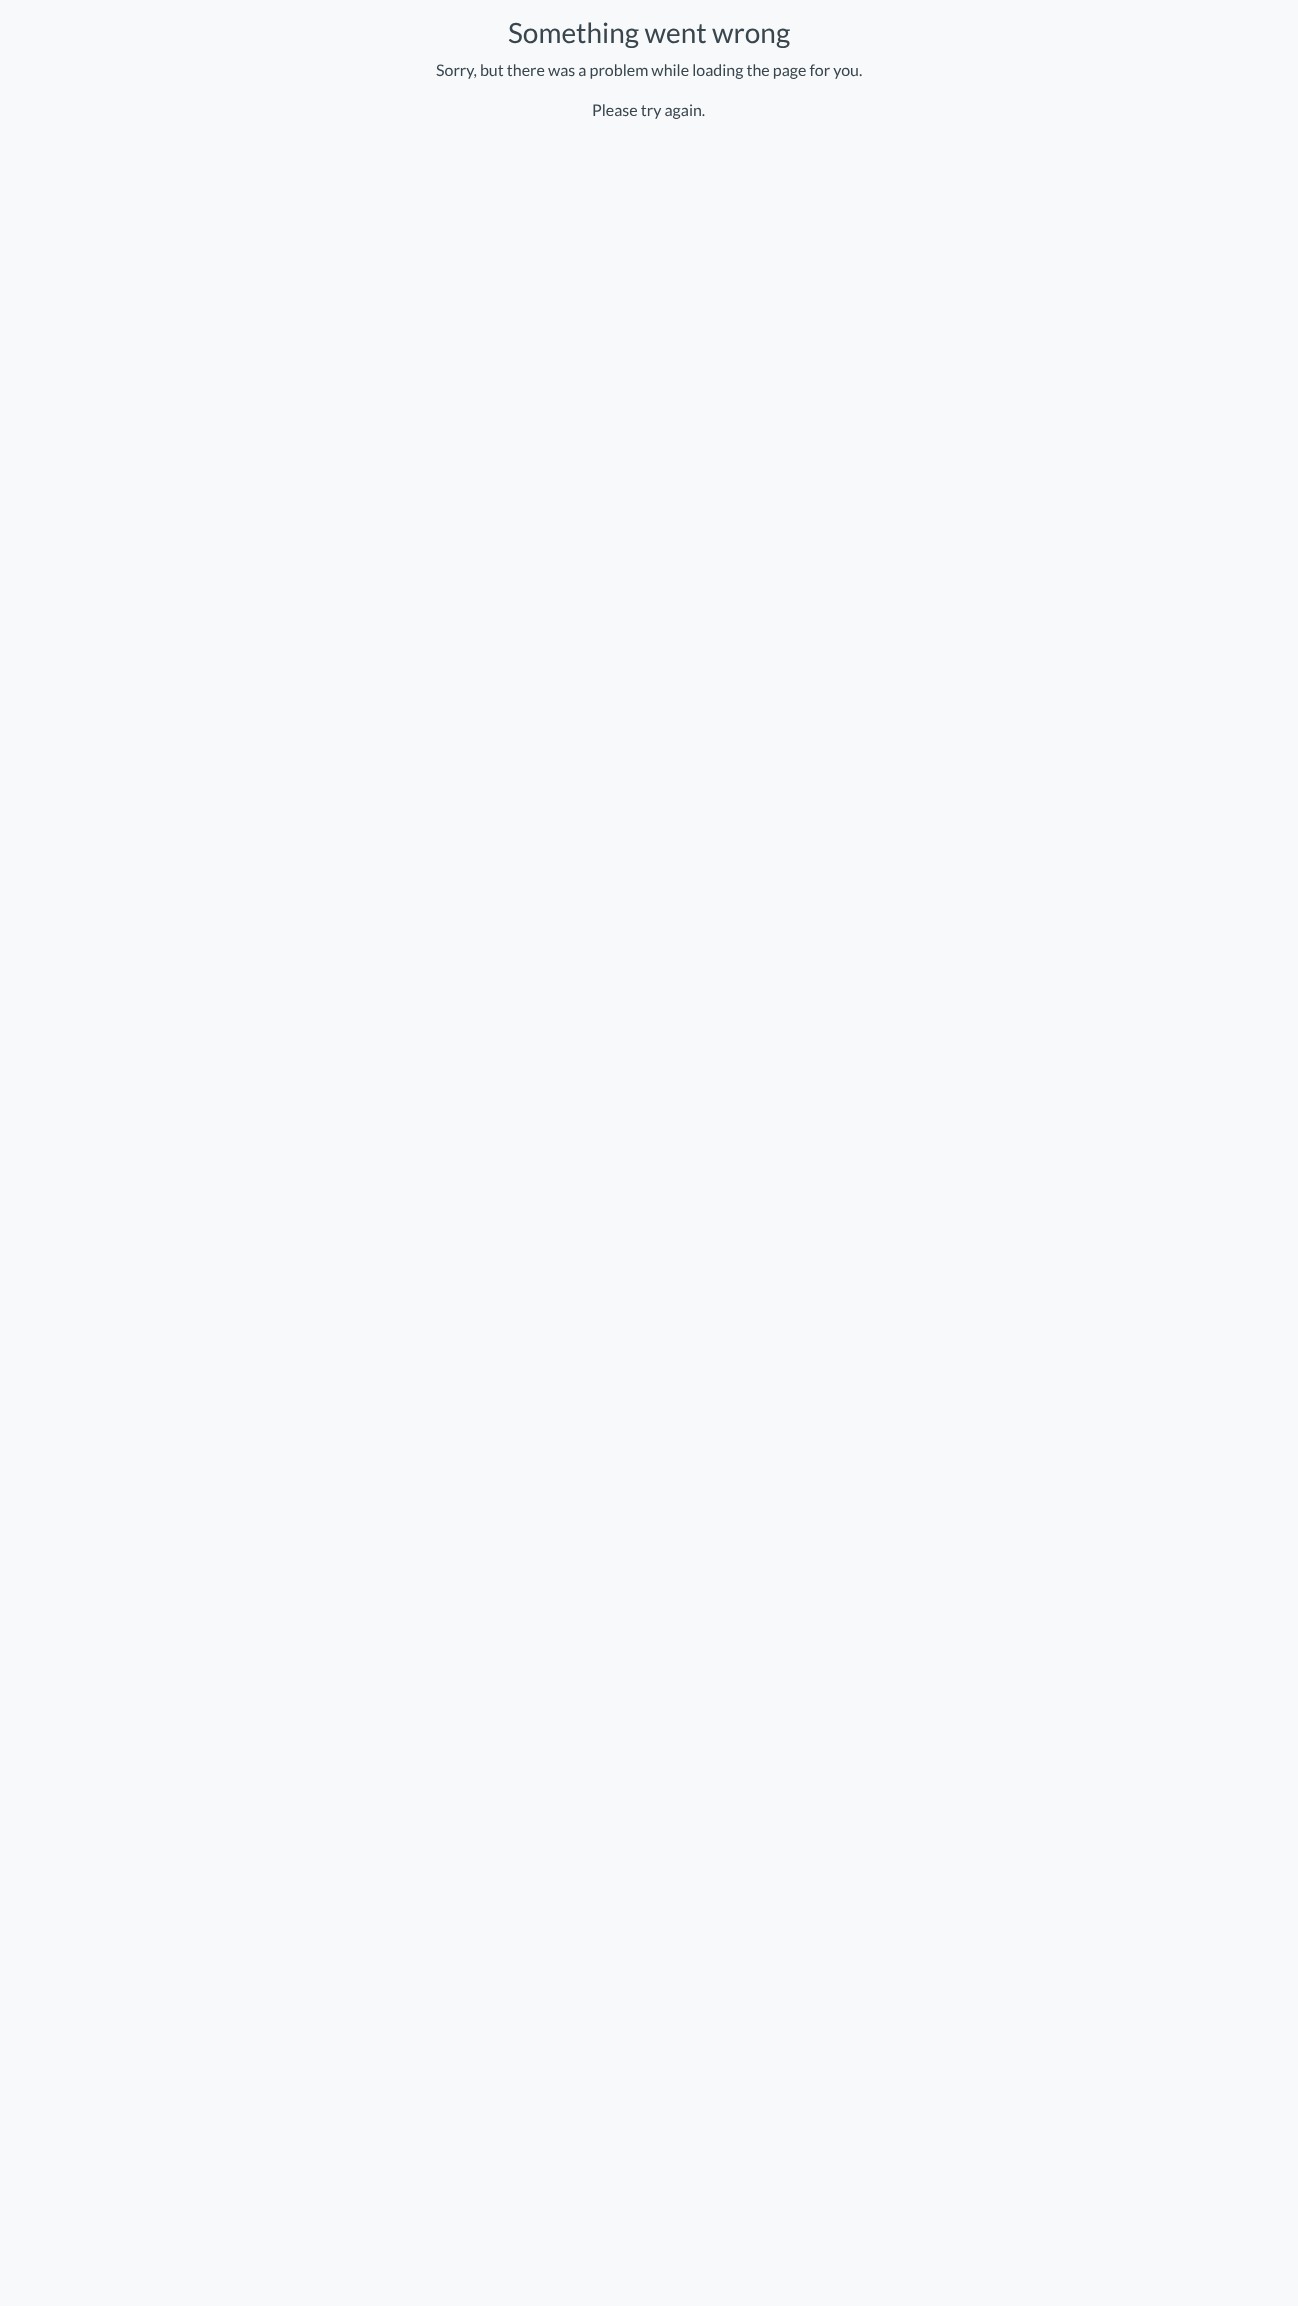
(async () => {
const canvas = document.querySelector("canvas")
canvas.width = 1298
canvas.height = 2306
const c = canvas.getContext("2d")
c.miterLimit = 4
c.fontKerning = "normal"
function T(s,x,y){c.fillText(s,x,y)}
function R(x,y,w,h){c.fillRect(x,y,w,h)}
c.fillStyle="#f8f9fa"
R(0,0,1298,2306)
c.font="28px Lato"
c.fillStyle="#39464e"
T("Something went wrong",508,43)
c.font="16px Lato"
T("Sorry, but there was a problem while loading the page for you.",436,76)
T("Please try again.",592,116)
})()
